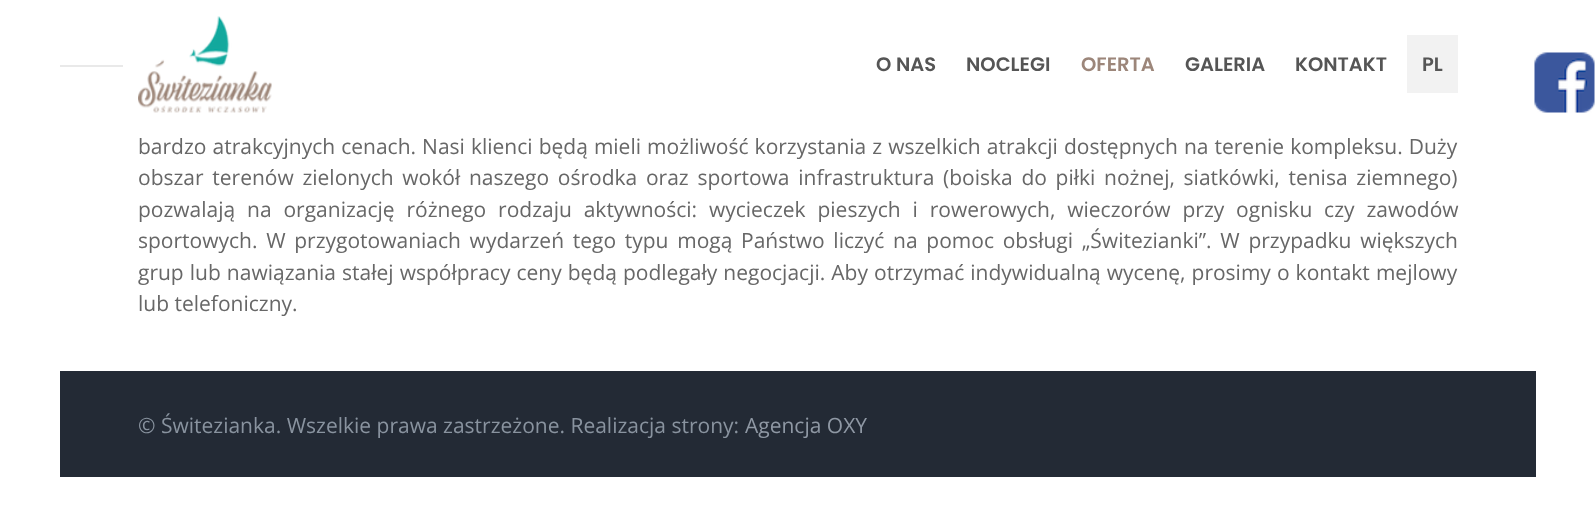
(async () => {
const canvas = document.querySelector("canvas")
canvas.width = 1595
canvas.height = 513
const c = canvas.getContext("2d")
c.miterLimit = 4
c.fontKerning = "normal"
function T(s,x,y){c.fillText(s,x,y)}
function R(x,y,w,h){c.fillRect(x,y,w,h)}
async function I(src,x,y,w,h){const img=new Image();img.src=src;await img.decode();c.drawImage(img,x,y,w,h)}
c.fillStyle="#fff"
R(0,0,1595,513)
c.fillStyle="#e9e9e9"
R(60,65,63,2)
await I("1.png",138,16,134,97)
c.font="600 19.5px Poppins"
c.fillStyle="#555"
T("O NAS",876,71)
T("NOCLEGI",966,71)
c.fillStyle="#9c867a"
T("OFERTA",1081,71)
c.fillStyle="#555"
T("GALERIA",1185,71)
T("KONTAKT",1295,71)
c.fillStyle="#f2f2f2"
R(1407,35,51,58)
c.fillStyle="#555"
T("PL",1422,71)
c.wordSpacing="0.6px"
c.font="21px Open Sans"
c.fillStyle="#676767"
T("bardzo atrakcyjnych cenach. Nasi klienci będą mieli możliwość korzystania z wszelkich atrakcji dostępnych na terenie kompleksu. Duży",138,154)
c.wordSpacing="3.25px"
T("obszar terenów zielonych wokół naszego ośrodka oraz sportowa infrastruktura (boiska do piłki nożnej, siatkówki, tenisa ziemnego)",138,185)
c.wordSpacing="6.4px"
T("pozwalają na organizację różnego rodzaju aktywności: wycieczek pieszych i rowerowych, wieczorów przy ognisku czy zawodów",138,217)
c.wordSpacing="3.25px"
T("sportowych. W przygotowaniach wydarzeń tego typu mogą Państwo liczyć na pomoc obsługi „Świtezianki”. W przypadku większych",138,248)
c.wordSpacing="0.6px"
T("grup lub nawiązania stałej współpracy ceny będą podlegały negocjacji. Aby otrzymać indywidualną wycenę, prosimy o kontakt mejlowy",138,280)
c.wordSpacing="0px"
T("lub telefoniczny.",138,311)
c.fillStyle="#232a35"
R(60,371,1476,106)
c.fillStyle="#89939f"
T("© Świtezianka. Wszelkie prawa zastrzeżone. Realizacja strony:",138,433)
c.fillStyle="#8f98a4"
T("Agencja OXY",745,433)
await I("2.png",1534,52,61,61)
})()
